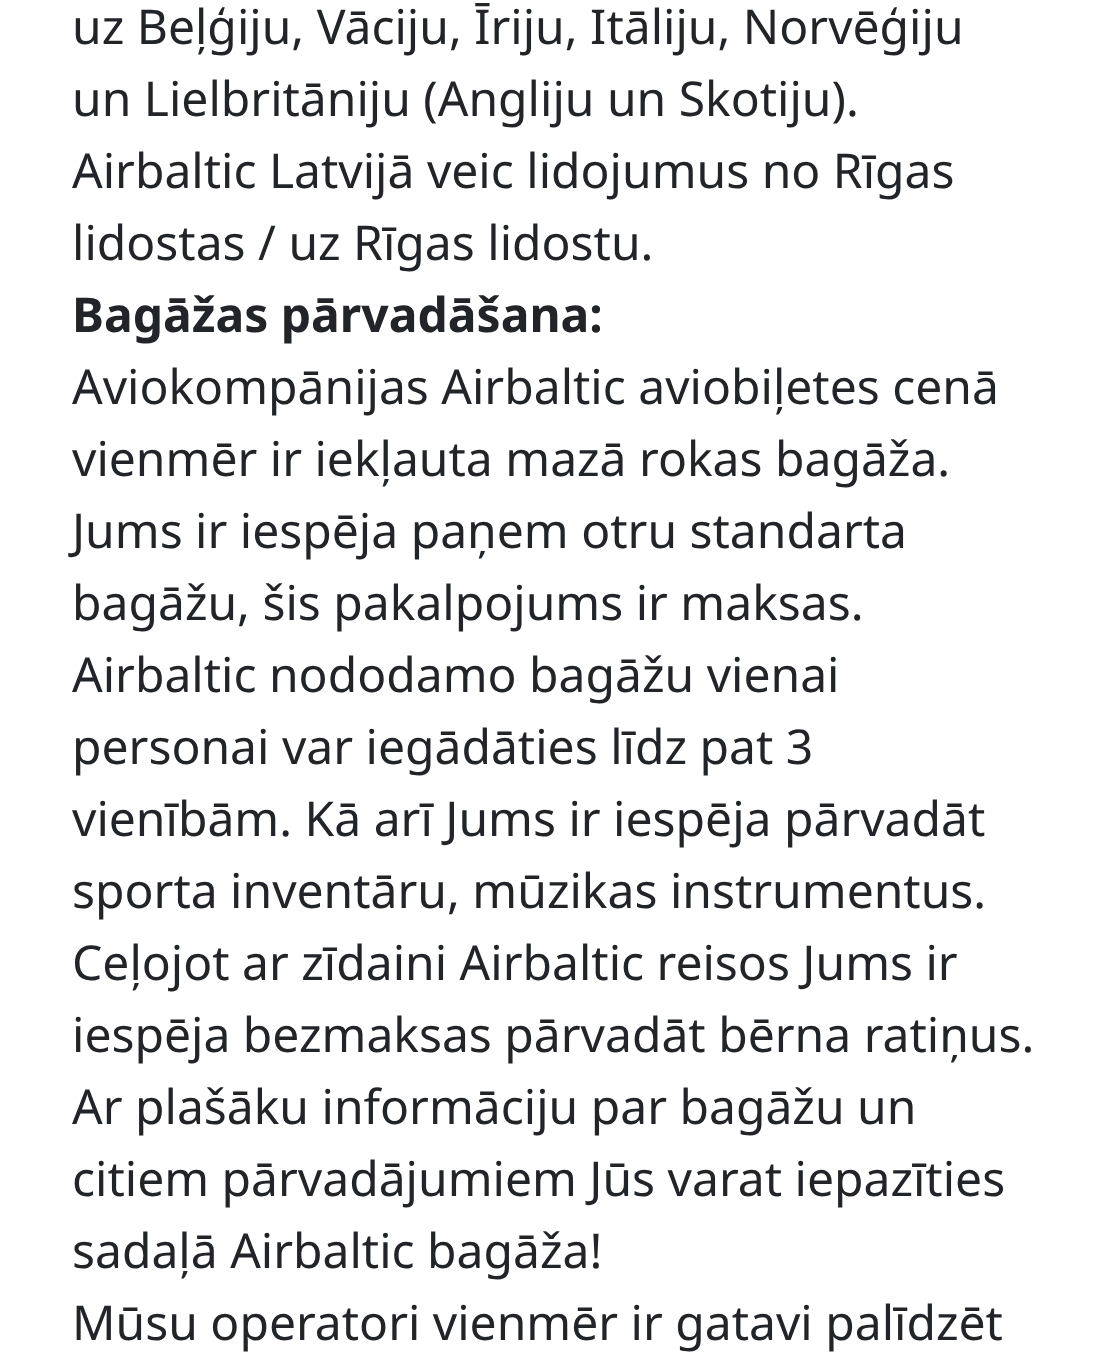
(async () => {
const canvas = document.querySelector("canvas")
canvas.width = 1105
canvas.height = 1352
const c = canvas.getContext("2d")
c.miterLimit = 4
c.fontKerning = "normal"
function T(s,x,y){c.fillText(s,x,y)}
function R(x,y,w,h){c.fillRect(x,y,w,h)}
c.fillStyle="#fff"
R(0,0,1105,1352)
c.font="48px Noto Sans"
c.fillStyle="#212529"
T("uz Beļģiju, Vāciju, Īriju, Itāliju, Norvēģiju",72,44)
T("un Lielbritāniju (Angliju un Skotiju).",72,116)
T("Airbaltic Latvijā veic lidojumus no Rīgas",72,188)
T("lidostas / uz Rīgas lidostu.",72,260)
c.font="bold 48px Noto Sans"
T("Bagāžas pārvadāšana:",72,332)
c.font="48px Noto Sans"
T("Aviokompānijas Airbaltic aviobiļetes cenā",72,404)
T("vienmēr ir iekļauta mazā rokas bagāža.",72,476)
T("Jums ir iespēja paņem otru standarta",72,548)
T("bagāžu, šis pakalpojums ir maksas.",72,620)
T("Airbaltic nododamo bagāžu vienai",72,692)
T("personai var iegādāties līdz pat 3",72,764)
T("vienībām. Kā arī Jums ir iespēja pārvadāt",72,836)
T("sporta inventāru, mūzikas instrumentus.",72,908)
T("Ceļojot ar zīdaini Airbaltic reisos Jums ir",72,980)
T("iespēja bezmaksas pārvadāt bērna ratiņus.",72,1052)
T("Ar plašāku informāciju par bagāžu un",72,1124)
T("citiem pārvadājumiem Jūs varat iepazīties",72,1196)
T("sadaļā Airbaltic bagāža!",72,1268)
T("Mūsu operatori vienmēr ir gatavi palīdzēt",72,1340)
})()
